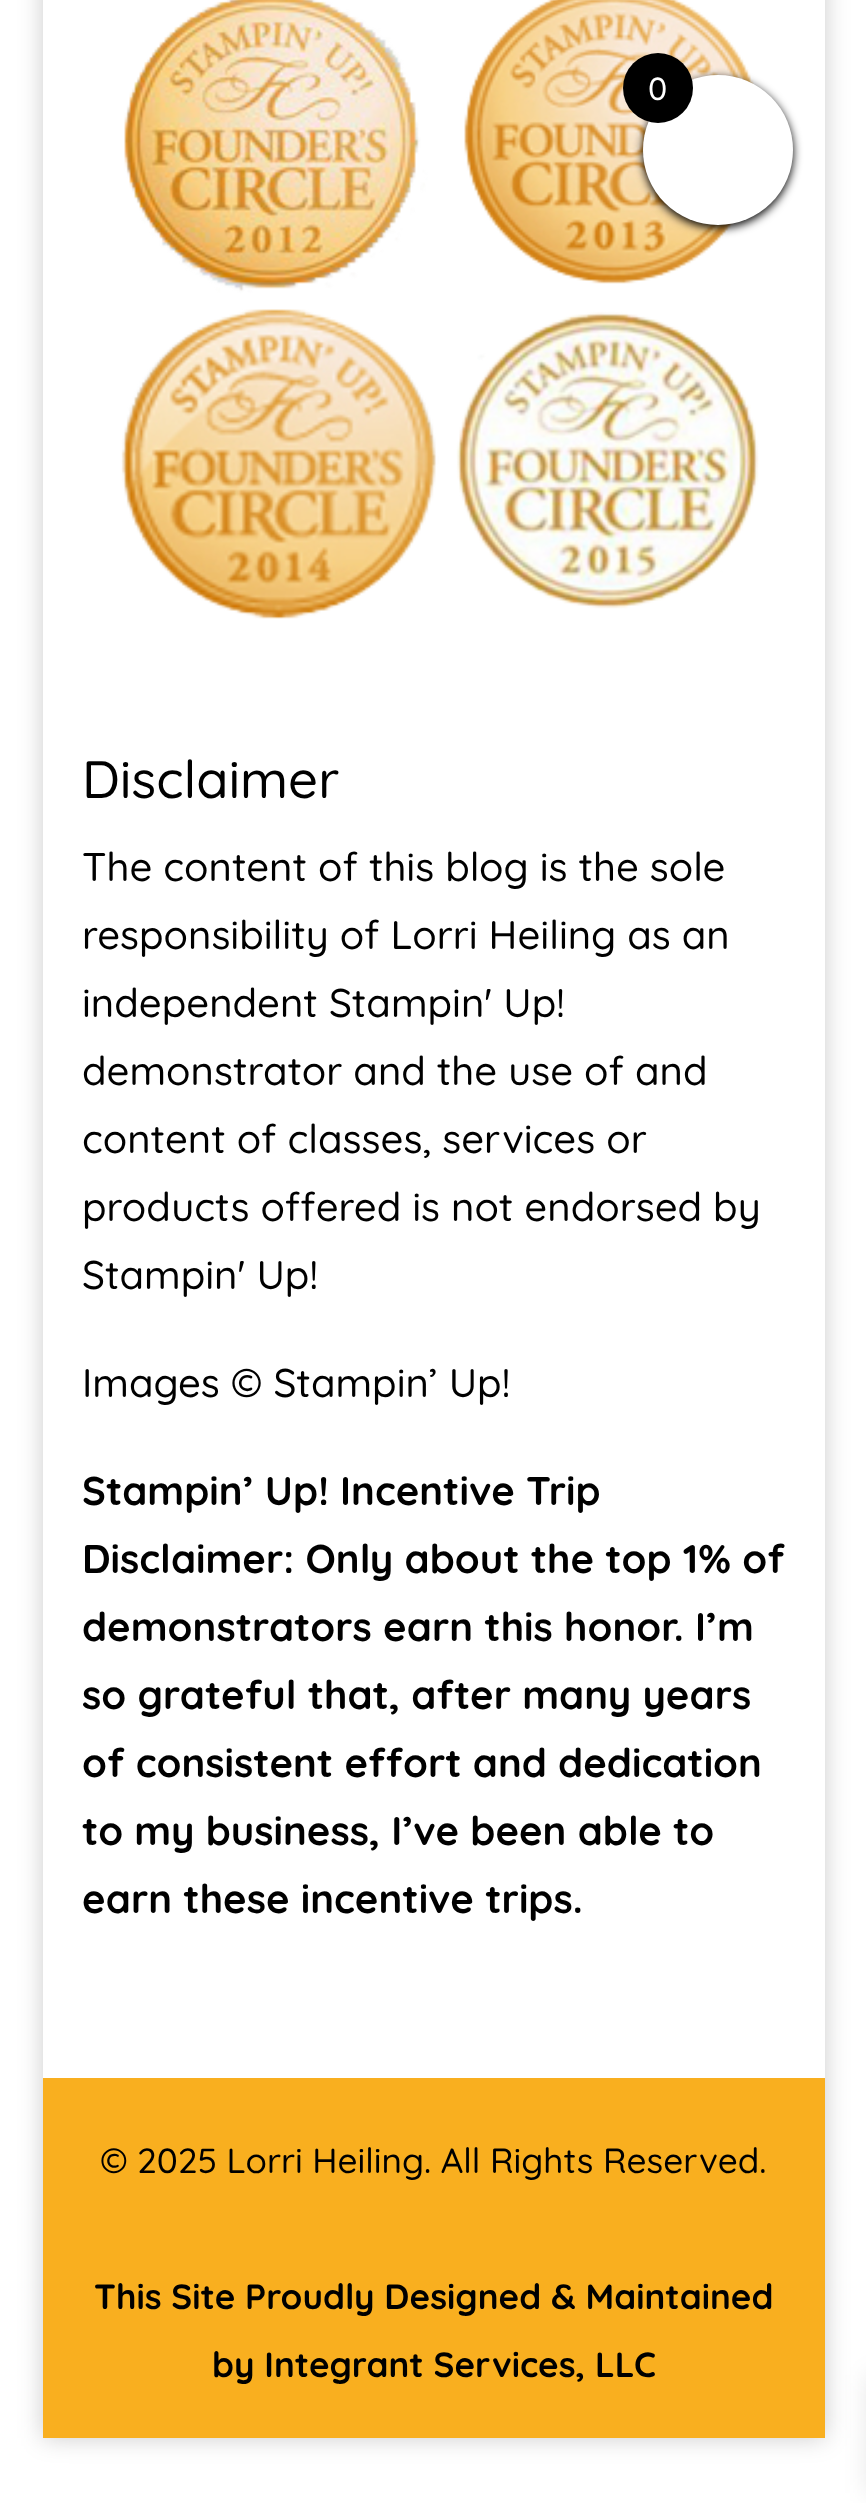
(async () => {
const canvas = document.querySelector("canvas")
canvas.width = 866
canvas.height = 2503
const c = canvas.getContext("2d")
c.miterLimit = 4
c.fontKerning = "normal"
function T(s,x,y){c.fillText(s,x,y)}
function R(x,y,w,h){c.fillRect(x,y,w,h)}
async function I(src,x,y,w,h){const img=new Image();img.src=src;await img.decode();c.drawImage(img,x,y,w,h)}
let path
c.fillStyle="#fff"
R(0,0,866,2503)
c.save()
path = new Path2D("M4 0h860v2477h-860zm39-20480h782v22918h-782z")
c.clip(path,"evenodd")
c.fillStyle="#00000033"
c.filter="blur(12.5px)"
c.beginPath()
c.rect(43,-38,782,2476)
c.fill()
c.filter="none"
c.restore()
await I("1.png",121,0,638,619)
c.fillStyle="#000"
c.filter="blur(5px)"
c.beginPath()
c.roundRect(643,78,150,150,75)
c.fill()
c.filter="none"
c.fillStyle="#fff"
c.beginPath()
c.arc(718,150,75,0,7)
c.fill()
c.fillStyle="#000"
c.beginPath()
c.arc(658,88,35,0,7)
c.fill()
c.font="300 32px Quicksand"
c.fillStyle="#fff"
T("0",648,100)
c.fillStyle="#0000001a"
c.filter="blur(12.5px)"
c.beginPath()
c.rect(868,2375,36,118)
c.fill()
c.filter="none"
c.font="300 52.5px Quicksand"
c.fillStyle="#000"
T("Disclaimer",82,798)
c.font="300 40px Quicksand"
T("The content of this blog is the sole",82,881)
T("responsibility of Lorri Heiling as an",82,949)
T("independent Stampin' Up!",82,1017)
T("demonstrator and the use of and",82,1085)
T("content of classes, services or",82,1153)
T("products offered is not endorsed by",82,1221)
T("Stampin' Up!",82,1289)
T("Images © Stampin’ Up!",82,1397)
c.font="300 40px 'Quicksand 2'"
T("Stampin’ Up! Incentive Trip",82,1505)
T("Disclaimer: Only about the top 1% of",82,1573)
T("demonstrators earn this honor. I’m",82,1641)
T("so grateful that, after many years",82,1709)
T("of consistent effort and dedication",82,1777)
T("to my business, I’ve been able to",82,1845)
T("earn these incentive trips.",82,1913)
c.fillStyle="#f9af1f"
R(43,2078,782,360)
c.font="300 35px Quicksand"
c.fillStyle="#000"
T("© 2025 Lorri Heiling. All Rights Reserved.",100,2173)
c.font="300 35px 'Quicksand 2'"
T("This Site Proudly Designed & Maintained",94,2309)
T("by Integrant Services, LLC",212,2377)
})()
